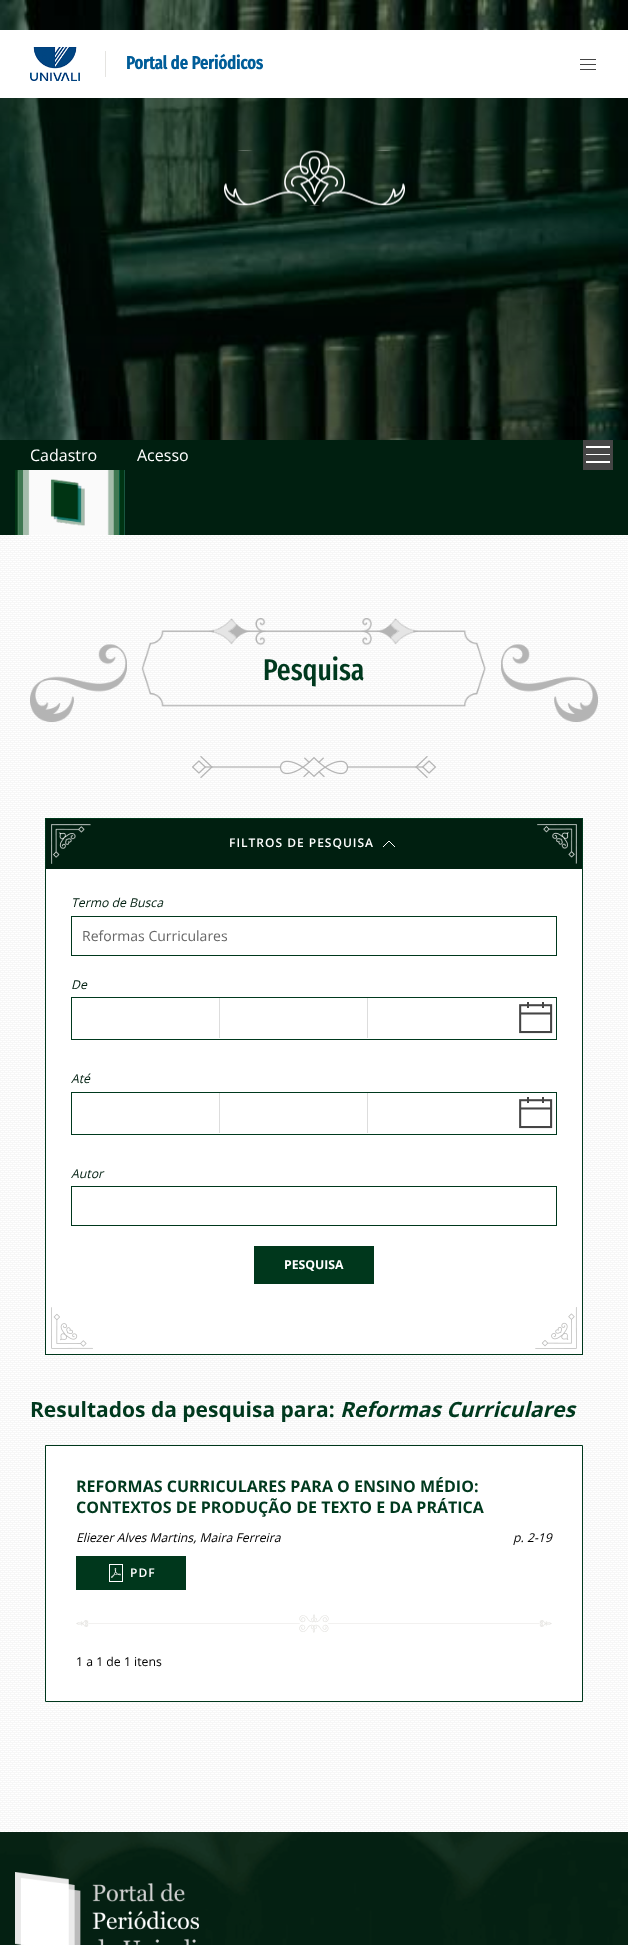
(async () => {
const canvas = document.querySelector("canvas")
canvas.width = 628
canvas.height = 1945
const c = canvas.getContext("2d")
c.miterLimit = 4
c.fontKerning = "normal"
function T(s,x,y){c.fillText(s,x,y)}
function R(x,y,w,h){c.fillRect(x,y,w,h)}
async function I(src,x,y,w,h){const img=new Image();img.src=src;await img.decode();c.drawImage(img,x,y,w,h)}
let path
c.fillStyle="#fff"
R(0,0,628,1945)
await I("1.png",0,535,628,1297)
await I("2.png",0,0,628,440)
R(0,30,628,68)
await I("3.png",30,47,50,34)
c.fillStyle="#e5e4e1"
R(105,51,1,26)
c.font="bold 18px Fira Sans Extra Condensed"
c.fillStyle="#005d99"
T("Portal de Periódicos",126,69)
c.fillStyle="#454545"
R(580,59,16,1)
R(580,64,16,1)
R(580,69,16,1)
await I("4.png",224,150,181,56)
c.fillStyle="#001f10"
R(0,440,628,95)
c.font="16px Open Sans"
c.fillStyle="#fff"
T("Cadastro",30,461)
T("Acesso",137,461)
c.fillStyle="#454545"
R(583,440,30,30)
c.fillStyle="#fff"
R(586,446,24,2)
R(586,454,24,1)
R(586,461,24,2)
await I("5.png",15,470,110,65)
await I("6.png",30,618,568,104)
c.font="500 30px Fira Sans Extra Condensed"
c.fillStyle="#00391e"
T("Pesquisa",263,680)
await I("7.png",192,756,244,22)
c.fillStyle="#fff"
R(46,869,536,485)
c.strokeStyle="#00371c"
c.strokeRect(45.5,818.5,537,536)
c.fillStyle="#001f10"
R(46,819,536,50)
await I("8.png",51,824,40,40)
c.letterSpacing="1px"
c.font="600 12px Open Sans"
c.fillStyle="#fff"
T("FILTROS DE PESQUISA",229,847)
path = new Path2D("M383 847l6-6l6 6")
c.strokeStyle="#fff"
c.stroke(path)
await I("9.png",537,824,40,40)
c.letterSpacing="0px"
c.font="italic 12.25px Open Sans"
c.fillStyle="#001f10"
T("Termo de Busca",71,907)
c.strokeStyle="#00371c"
c.strokeRect(71.5,916.5,485,39)
c.font="14px Open Sans"
c.fillStyle="#666"
T("Reformas Curriculares",82,941)
c.font="italic 12.25px Open Sans"
c.fillStyle="#001f10"
T("De",71,989)
c.strokeStyle="#00391e"
c.strokeRect(71.5,997.5,485,42)
c.fillStyle="#ddd"
R(219,998,1,40)
R(367,998,1,40)
await I("10.png",519,1002,34,32)
c.fillStyle="#001f10"
T("Até",71,1083)
c.strokeRect(71.5,1092.5,485,42)
c.fillStyle="#ddd"
R(219,1093,1,40)
R(367,1093,1,40)
await I("10.png",519,1097,34,32)
c.fillStyle="#001f10"
T("Autor",71,1178)
c.strokeStyle="#00371c"
c.strokeRect(71.5,1186.5,485,39)
c.fillStyle="#00371c"
R(254,1246,120,38)
c.font="bold 12.25px Open Sans"
c.fillStyle="#fff"
T("PESQUISA",284,1269)
await I("11.png",51,1307,42,42)
await I("12.png",535,1307,42,42)
c.font="bold 21px Open Sans"
c.fillStyle="#00391e"
T("Resultados da pesquisa para:",30,1417)
c.font="italic bold 21px Open Sans"
T("Reformas Curriculares",340,1417)
c.fillStyle="#fff"
c.beginPath()
c.rect(45.5,1445.5,537,256)
c.fill()
c.stroke()
c.font="bold 16px Open Sans"
c.fillStyle="#00391e"
T("REFORMAS CURRICULARES PARA O ENSINO MÉDIO:",76,1492)
T("CONTEXTOS DE PRODUÇÃO DE TEXTO E DA PRÁTICA",76,1513)
c.font="italic 12.25px Open Sans"
c.fillStyle="#000"
T("Eliezer Alves Martins, Maira Ferreira",76,1542)
T("p. 2-19",513,1542)
c.fillStyle="#00371c"
R(76,1556,110,34)
await I("13.png",109,1564,14,18)
c.letterSpacing="1px"
c.font="600 12px Open Sans"
c.fillStyle="#fff"
T("PDF",130,1577)
await I("14.png",76,1614,476,19)
c.letterSpacing="0px"
c.font="12.25px Open Sans"
c.fillStyle="#000"
T("1 a 1 de 1 itens",76,1666)
await I("15.png",0,1832,628,113)
await I("16.png",15,1872,184,73)
})()
